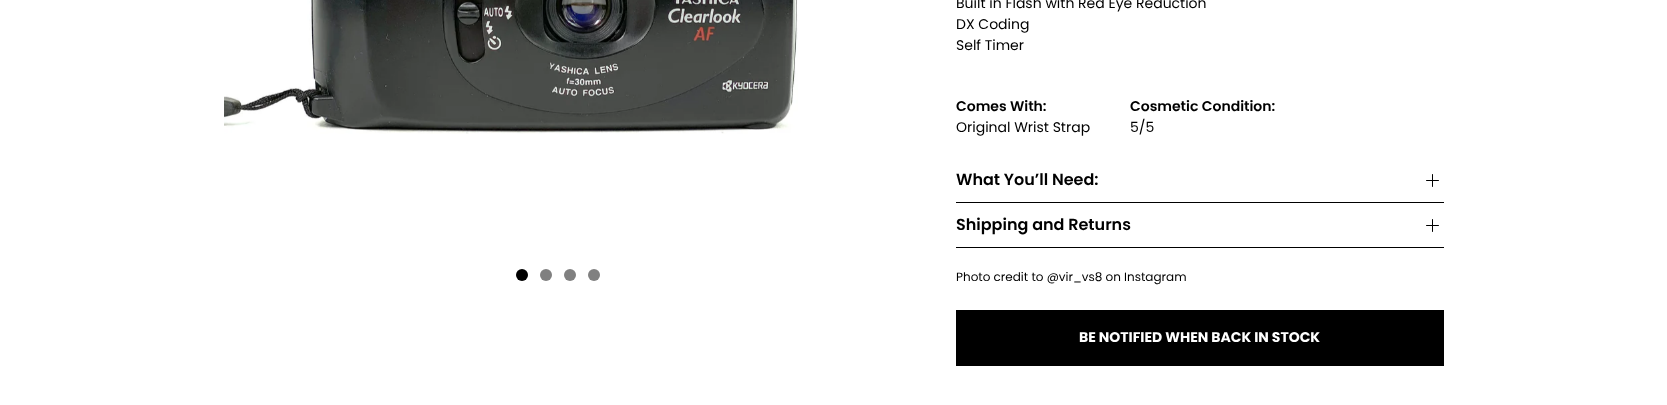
(async () => {
const canvas = document.querySelector("canvas")
canvas.width = 1667
canvas.height = 405
const c = canvas.getContext("2d")
c.miterLimit = 4
c.fontKerning = "normal"
function T(s,x,y){c.fillText(s,x,y)}
function R(x,y,w,h){c.fillRect(x,y,w,h)}
async function I(src,x,y,w,h){const img=new Image();img.src=src;await img.decode();c.drawImage(img,x,y,w,h)}
c.fillStyle="#fff"
R(0,0,1667,405)
await I("1.png",224,0,574,134)
c.fillStyle="#000"
c.beginPath()
c.arc(522,275,6,0,7)
c.fill()
c.fillStyle="#808080"
c.beginPath()
c.arc(546,275,6,0,7)
c.fill()
c.beginPath()
c.arc(570,275,6,0,7)
c.fill()
c.beginPath()
c.arc(594,275,6,0,7)
c.fill()
c.font="14px Poppins"
c.fillStyle="#000"
T("Built in Flash with Red Eye Reduction",956,8)
T("DX Coding",956,29)
T("Self Timer",956,50)
c.font="600 14px Poppins"
T("Comes With:",956,111)
c.font="14px Poppins"
T("Original Wrist Strap",956,132)
c.font="600 14px Poppins"
T("Cosmetic Condition:",1130,111)
c.font="14px Poppins"
T("5/5",1130,132)
R(956,202,488,1)
c.font="600 16px Poppins"
T("What You’ll Need:",956,185)
await I("2.png",1426,174,13,13)
R(956,247,488,1)
T("Shipping and Returns",956,230)
await I("2.png",1426,219,13,13)
c.font="12px Poppins"
T("Photo credit to @vir_vs8 on Instagram",956,281)
R(956,310,488,56)
c.font="bold 14px Poppins"
c.fillStyle="#fff"
T("BE NOTIFIED WHEN BACK IN STOCK",1079,342)
})()
